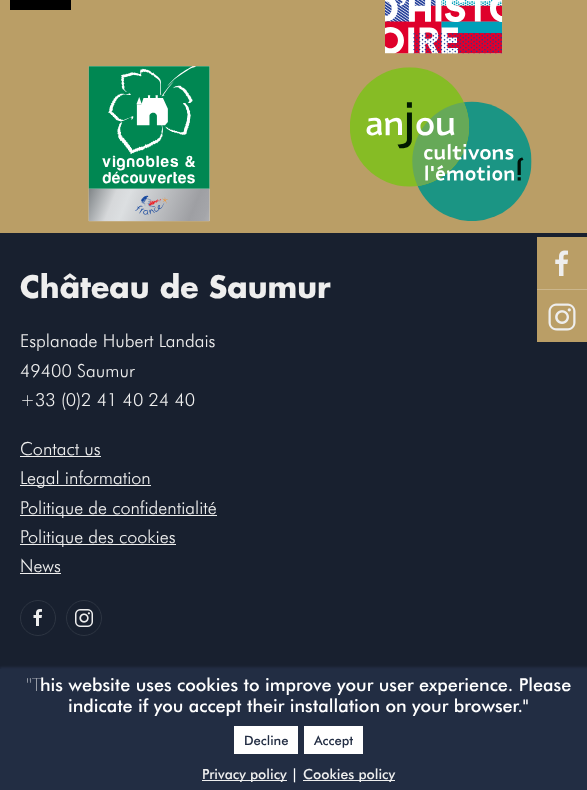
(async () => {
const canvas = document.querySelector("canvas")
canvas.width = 587
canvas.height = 790
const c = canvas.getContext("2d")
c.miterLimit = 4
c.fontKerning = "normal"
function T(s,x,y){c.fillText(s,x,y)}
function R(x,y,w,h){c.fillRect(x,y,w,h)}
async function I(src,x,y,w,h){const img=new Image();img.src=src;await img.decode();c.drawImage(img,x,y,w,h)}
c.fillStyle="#ba9e66"
R(0,0,587,790)
c.fillStyle="#18202f"
R(0,233,587,436)
c.fillStyle="#ba9e66"
R(537,237,50,52)
c.fillStyle="#cbb68c"
R(537,289,50,1)
await I("1.png",555,250,13,26)
c.fillStyle="#ba9e66"
R(537,290,50,52)
await I("2.png",548,303,28,28)
c.fillStyle="#000"
R(10,0,61,10)
await I("3.png",385,0,118,54)
await I("4.png",88,66,122,156)
await I("5.png",350,67,182,154)
c.font="bold 30px Futura"
c.fillStyle="#eee"
T("Château de Saumur",20,298)
c.font="300 18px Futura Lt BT"
T("Esplanade Hubert Landais",20,347)
T("49400 Saumur",20,377)
T("+33 (0)2 41 40 24 40",20,406)
T("Contact us",20,455)
R(20,456,81,1)
R(20,485,131,1)
T("Legal information",20,484)
R(20,515,197,1)
T("Politique de confidentialité",20,514)
R(20,544,156,1)
T("Politique des cookies",20,543)
T("News",20,572)
R(20,573,41,1)
c.beginPath()
c.arc(38,618,17.5,0,7)
c.strokeStyle="#2d3542"
c.stroke()
await I("6.png",33,609,9,17)
c.beginPath()
c.arc(84,618,17.5,0,7)
c.stroke()
await I("7.png",75,609,18,18)
c.fillStyle="#222d43"
c.filter="blur(1px)"
c.beginPath()
c.rect(0,667,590,121)
c.fill()
c.filter="none"
R(0,669,587,121)
c.font="100 18px Noto Sans"
c.fillStyle="#fff"
T("\"T",26,691)
c.font="500 18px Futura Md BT"
T("his website uses cookies to improve your user experience. Please",40,691)
T("indicate if you accept their installation on your browser.\"",68,712)
R(234,726,64,28)
c.font="500 13px Futura Md BT"
c.fillStyle="#222d43"
T("Decline",244,745)
c.fillStyle="#fff"
R(304,726,59,28)
c.fillStyle="#222d43"
T("Accept",314,745)
c.fillStyle="#eee"
R(202,780,85,1)
c.font="500 14px Futura Md BT"
T("Privacy policy",202,779)
c.fillStyle="#fff"
T("|",291,779)
c.fillStyle="#eee"
R(303,780,92,1)
T("Cookies policy",303,779)
})()
